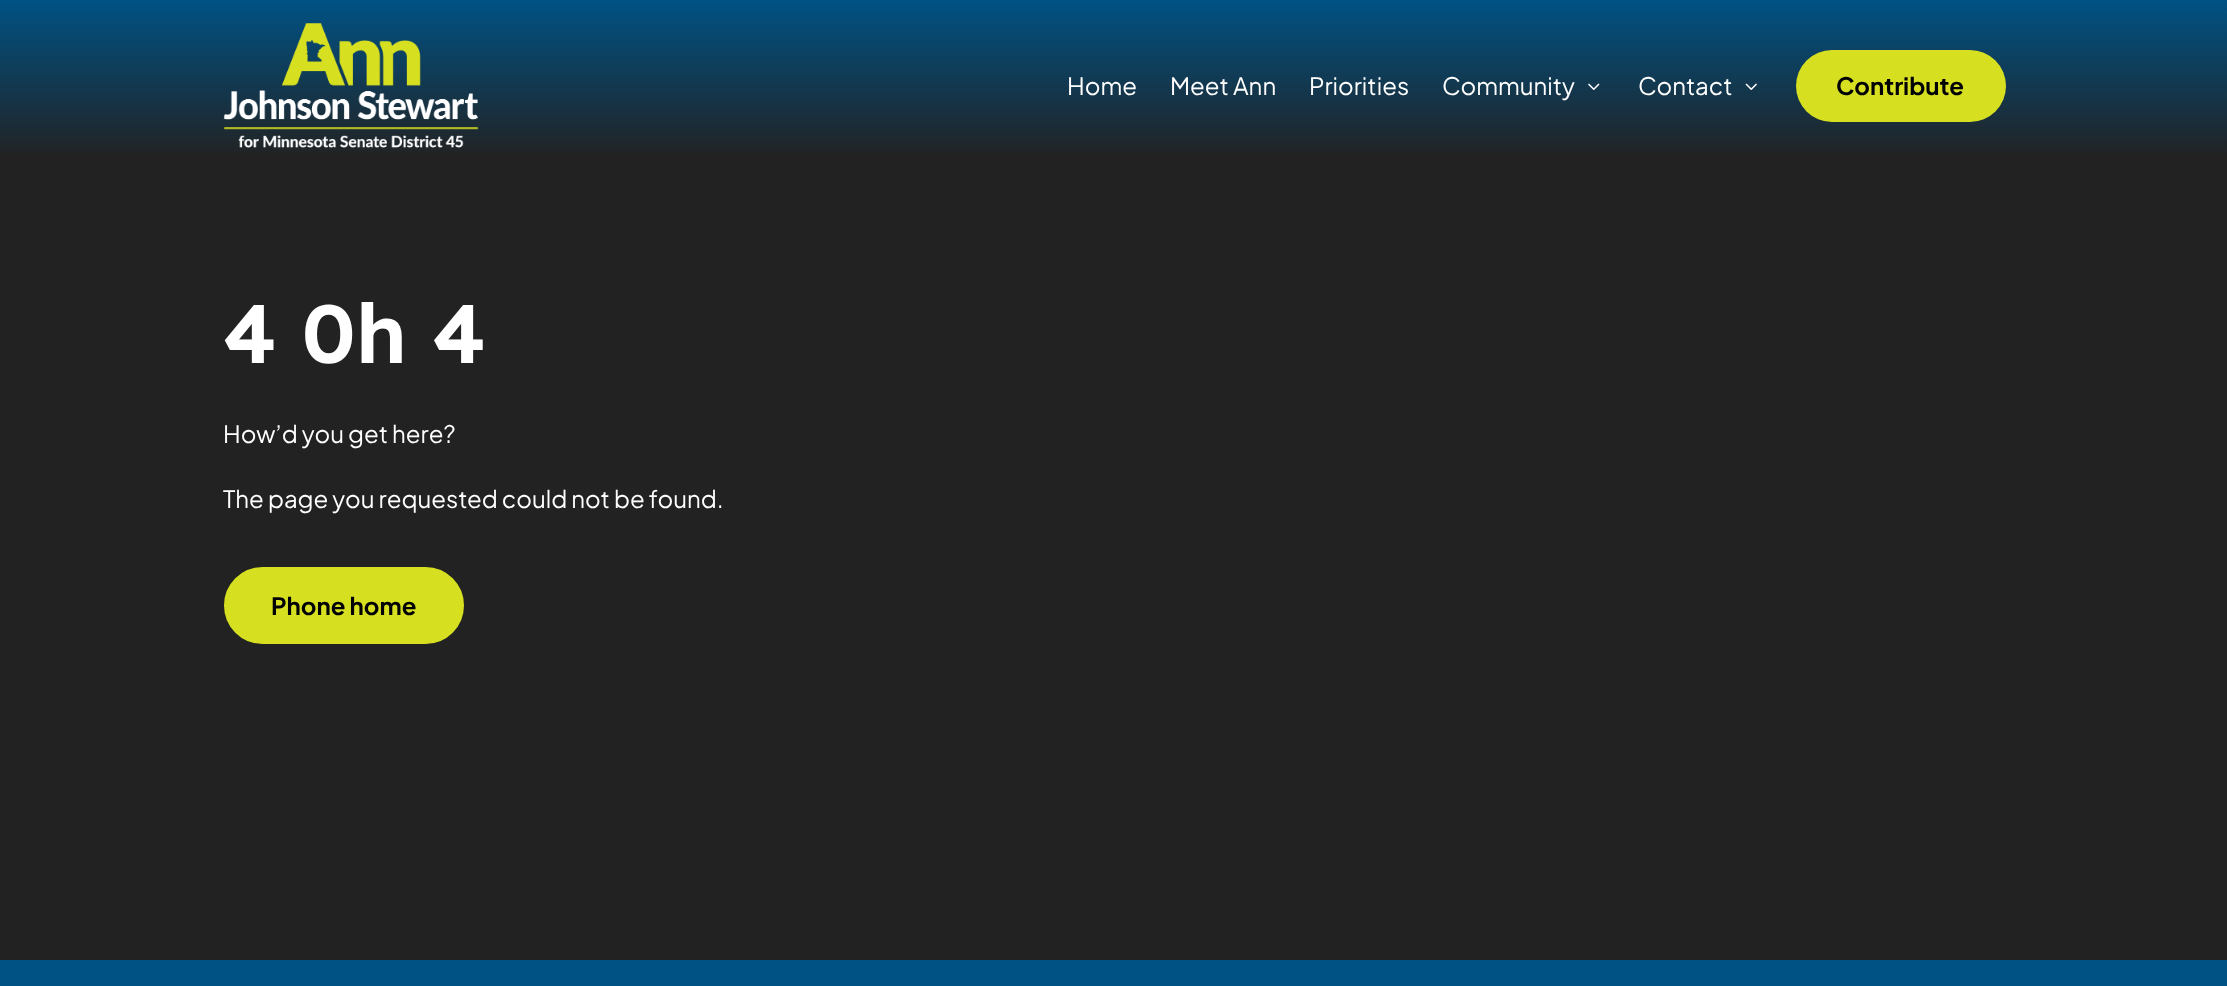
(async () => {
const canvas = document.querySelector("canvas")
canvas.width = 2227
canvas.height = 986
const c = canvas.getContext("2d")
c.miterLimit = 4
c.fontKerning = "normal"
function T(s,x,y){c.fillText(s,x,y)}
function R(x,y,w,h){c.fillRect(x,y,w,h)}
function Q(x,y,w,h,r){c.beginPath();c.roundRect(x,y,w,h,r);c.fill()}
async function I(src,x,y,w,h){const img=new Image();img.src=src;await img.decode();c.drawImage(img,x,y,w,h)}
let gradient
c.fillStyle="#222"
R(0,0,2227,986)
gradient = c.createLinearGradient(1114,0,1114,176)
gradient.addColorStop(0,"#005285")
gradient.addColorStop(.9,"#222")
c.fillStyle = gradient
R(0,0,2227,154)
await I("1.png",223,23,256,125)
c.font="24px Plus Jakarta Sans"
c.fillStyle="#fff"
T("Home",1067,95)
T("Meet Ann",1170,95)
T("Priorities",1309,95)
T("Community",1442,95)
await I("2.png",1588,83,12,7)
T("Contact",1638,95)
await I("3.png",1745,83,12,7)
c.fillStyle="#d6df20"
Q(1796,50,210,72,36)
c.font="bold 24px Plus Jakarta Sans"
c.fillStyle="#000"
T("Contribute",1836,95)
c.font="600 82.5px Lexend"
c.fillStyle="#fff"
T("4 0h 4",223,363)
c.font="24px Plus Jakarta Sans"
T("How’d you get here?",223,443)
T("The page you requested could not be found.",223,508)
c.fillStyle="#d6df20"
c.beginPath()
c.roundRect(225.5,568.5,237,74,37)
c.fill()
c.strokeStyle="#d6df20"
c.lineWidth=3
c.stroke()
c.font="bold 24px Plus Jakarta Sans"
c.fillStyle="#000"
T("Phone home",271,615)
c.fillStyle="#005285"
R(0,960,2227,26)
})()
